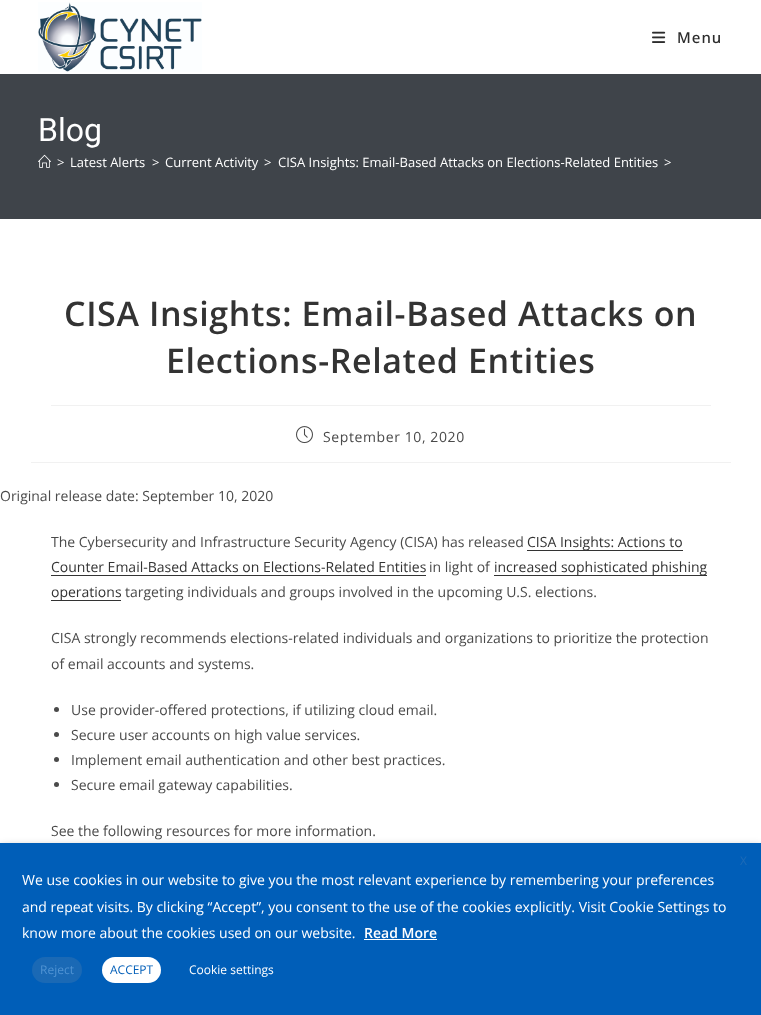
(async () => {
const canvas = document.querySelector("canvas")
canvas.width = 761
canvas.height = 1015
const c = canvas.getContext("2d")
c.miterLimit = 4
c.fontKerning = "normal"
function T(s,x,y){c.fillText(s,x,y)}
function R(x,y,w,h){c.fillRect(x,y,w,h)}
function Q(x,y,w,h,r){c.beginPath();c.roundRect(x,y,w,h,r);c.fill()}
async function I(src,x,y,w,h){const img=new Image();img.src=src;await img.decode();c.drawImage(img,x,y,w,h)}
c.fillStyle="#fff"
R(0,0,761,1015)
await I("1.png",38,2,164,70)
await I("2.png",652,31,14,12)
c.letterSpacing="1px"
c.font="500 15px Noto Sans"
c.fillStyle="#2c2c2c"
T("Menu",677,43)
c.fillStyle="#3f444a"
R(0,74,761,145)
c.letterSpacing="0px"
c.font="32px Roboto"
c.fillStyle="#fff"
T("Blog",38,141)
await I("3.png",38,154,13,14)
c.font="13px Open Sans"
T(">",57,167)
T("Latest Alerts",70,167)
T(">",152,167)
T("Current Activity",165,167)
T(">",264,167)
T("CISA Insights: Email-Based Attacks on Elections-Related Entities",278,167)
T(">",664,167)
c.fillStyle="#f1f1f1"
R(51,405,660,1)
c.letterSpacing="0.6px"
c.font="600 34px Open Sans"
c.fillStyle="#333"
T("CISA Insights: Email-Based Attacks on",64,326)
T("Elections-Related Entities",166,373)
c.fillStyle="#f1f1f1"
R(31,462,700,1)
await I("4.png",296,426,17,18)
c.font="14px Open Sans"
c.fillStyle="#4a4a4a"
T("September 10, 2020",323,442)
c.letterSpacing="0px"
T("Original release date: September 10, 2020",0,501)
T("The Cybersecurity and Infrastructure Security Agency (CISA) has released",51,547)
c.fillStyle="#333"
R(527,550,156,1)
T("CISA Insights: Actions to",527,547)
T("Counter Email-Based Attacks on Elections-Related Entities",51,572)
R(51,575,375,1)
c.fillStyle="#4a4a4a"
T("in light of",429,572)
c.fillStyle="#333"
R(494,575,213,1)
T("increased sophisticated phishing",494,572)
R(51,600,70,1)
T("operations",51,597)
c.fillStyle="#4a4a4a"
T("targeting individuals and groups involved in the upcoming U.S. elections.",125,597)
T("CISA strongly recommends elections-related individuals and organizations to prioritize the protection",51,643)
T("of email accounts and systems.",51,669)
c.beginPath()
c.arc(56.5,709.5,2.5,0,7)
c.fill()
T("Use provider-offered protections, if utilizing cloud email.",71,715)
c.beginPath()
c.arc(56.5,734.5,2.5,0,7)
c.fill()
T("Secure user accounts on high value services.",71,740)
c.beginPath()
c.arc(56.5,759.5,2.5,0,7)
c.fill()
T("Implement email authentication and other best practices.",71,765)
c.beginPath()
c.arc(56.5,784.5,2.5,0,7)
c.fill()
T("Secure email gateway capabilities.",71,790)
T("See the following resources for more information.",51,836)
c.fillStyle="#00000080"
c.filter="blur(5px)"
c.beginPath()
c.rect(0,848,761,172)
c.fill()
c.filter="none"
c.fillStyle="#005eb8"
R(0,843,761,172)
c.font="12px Open Sans"
c.fillStyle="#1d6bb7"
T("X",740,865)
c.font="14px Open Sans"
c.fillStyle="#fff"
T("We use cookies in our website to give you the most relevant experience by remembering your preferences",22,885)
T("and repeat visits. By clicking “Accept”, you consent to the use of the cookies explicitly. Visit Cookie Settings to",22,912)
T("know more about the cookies used on our website.",22,938)
c.font="600 14px Open Sans"
T("Read More",364,938)
R(364,939,73,1)
c.fillStyle="#1a69b5"
Q(32,957,50,26,13)
c.font="12px Open Sans"
c.fillStyle="#5093d3"
T("Reject",40,974)
c.fillStyle="#fff"
Q(102,957,59,26,13)
c.fillStyle="#005eb8"
T("ACCEPT",110,974)
c.fillStyle="#fff"
T("Cookie settings",189,974)
})()
